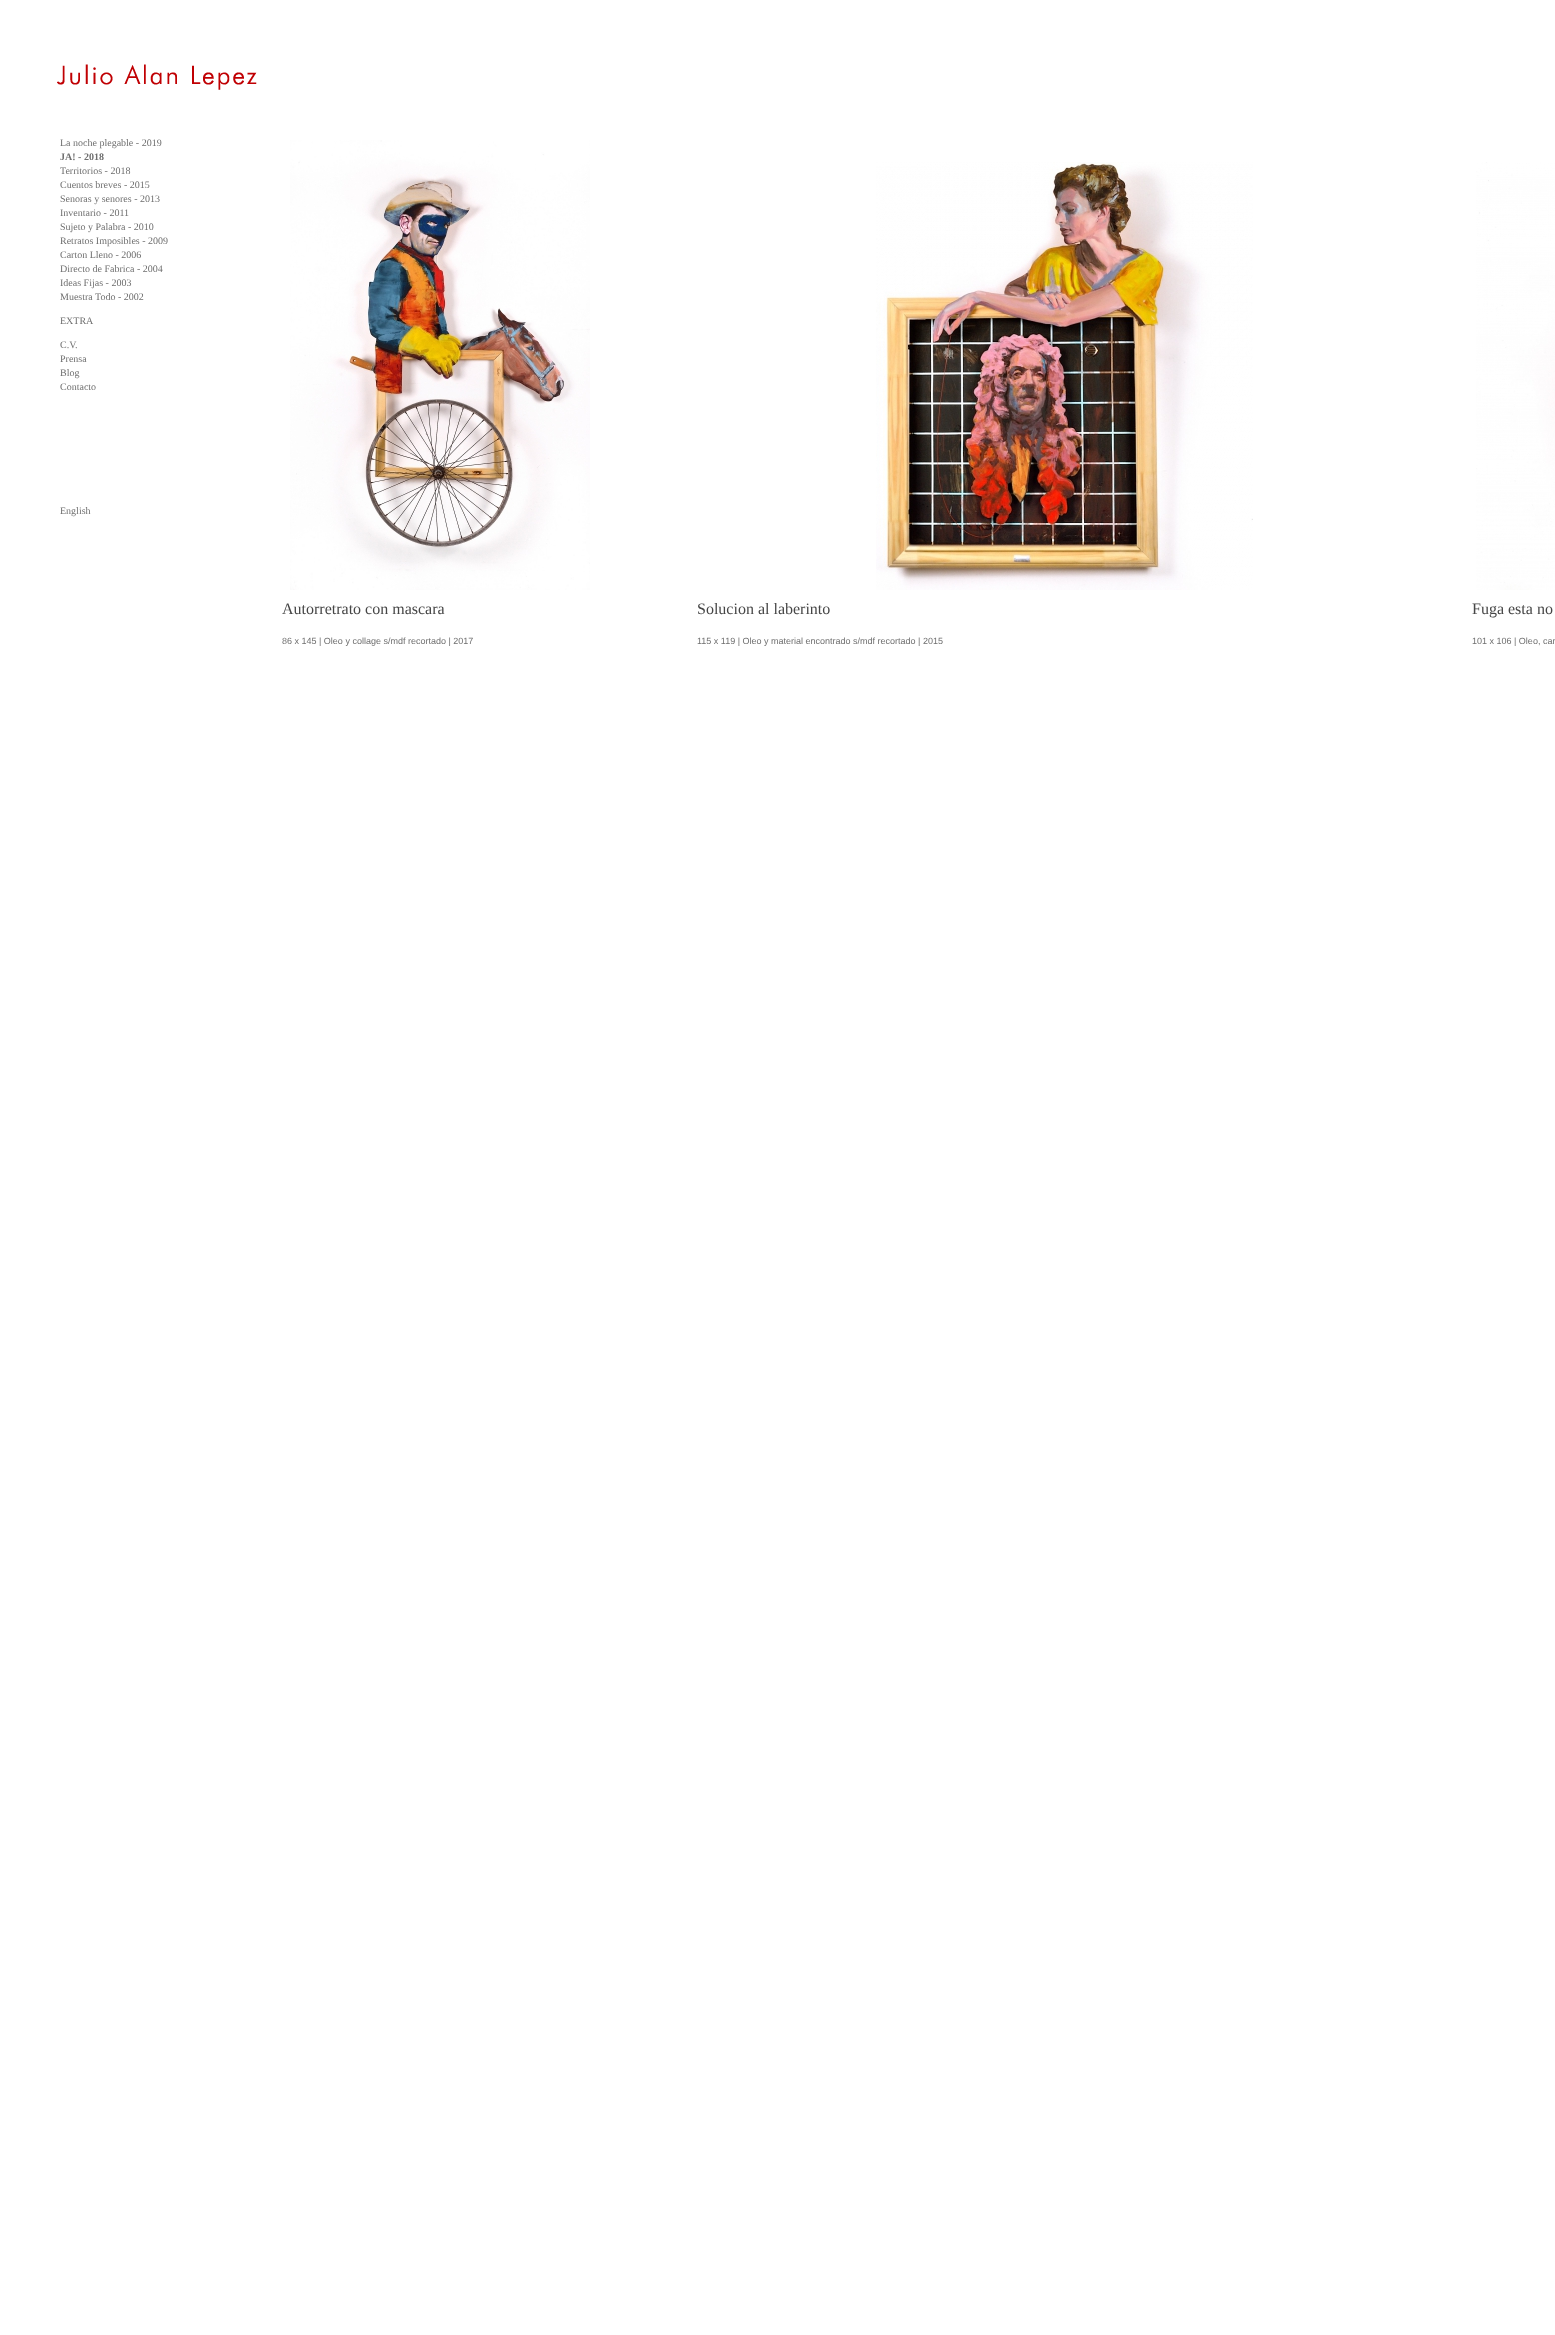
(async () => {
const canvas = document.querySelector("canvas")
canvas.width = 1555
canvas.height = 2335
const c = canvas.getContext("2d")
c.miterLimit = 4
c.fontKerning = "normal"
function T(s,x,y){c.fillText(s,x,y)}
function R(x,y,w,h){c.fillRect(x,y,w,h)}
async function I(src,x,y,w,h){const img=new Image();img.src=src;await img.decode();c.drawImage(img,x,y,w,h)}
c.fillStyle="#fff"
R(0,0,1555,2335)
await I("1.png",57,64,200,26)
c.font="10px Liberation Serif"
c.fillStyle="#6f6f6f"
T("La noche plegable - 2019",60,146)
c.font="bold 10px Liberation Serif"
T("JA! - 2018",60,160)
c.font="10px Liberation Serif"
T("Territorios - 2018",60,174)
T("Cuentos breves - 2015",60,188)
T("Senoras y senores - 2013",60,202)
T("Inventario - 2011",60,216)
T("Sujeto y Palabra - 2010",60,230)
T("Retratos Imposibles - 2009",60,244)
T("Carton Lleno - 2006",60,258)
T("Directo de Fabrica - 2004",60,272)
T("Ideas Fijas - 2003",60,286)
T("Muestra Todo - 2002",60,300)
T("EXTRA",60,324)
T("C.V.",60,348)
T("Prensa",60,362)
T("Blog",60,376)
T("Contacto",60,390)
T("English",60,514)
await I("2.png",290,140,300,450)
c.font="16px Liberation Serif"
c.fillStyle="#464646"
T("Autorretrato con mascara",282,614)
c.font="9px Liberation Sans"
c.fillStyle="#6f6f6f"
T("86 x 145 | Oleo y collage s/mdf recortado | 2017",282,644)
await I("3.png",876,162,377,428)
c.font="16px Liberation Serif"
c.fillStyle="#464646"
T("Solucion al laberinto",697,614)
c.font="9px Liberation Sans"
c.fillStyle="#6f6f6f"
T("115 x 119 | Oleo y material encontrado s/mdf recortado | 2015",697,644)
await I("4.png",1476,162,79,428)
c.font="16px Liberation Serif"
c.fillStyle="#464646"
T("Fuga esta no",1472,614)
c.font="9px Liberation Sans"
c.fillStyle="#6f6f6f"
T("101 x 106 | Oleo, car",1472,644)
})()
